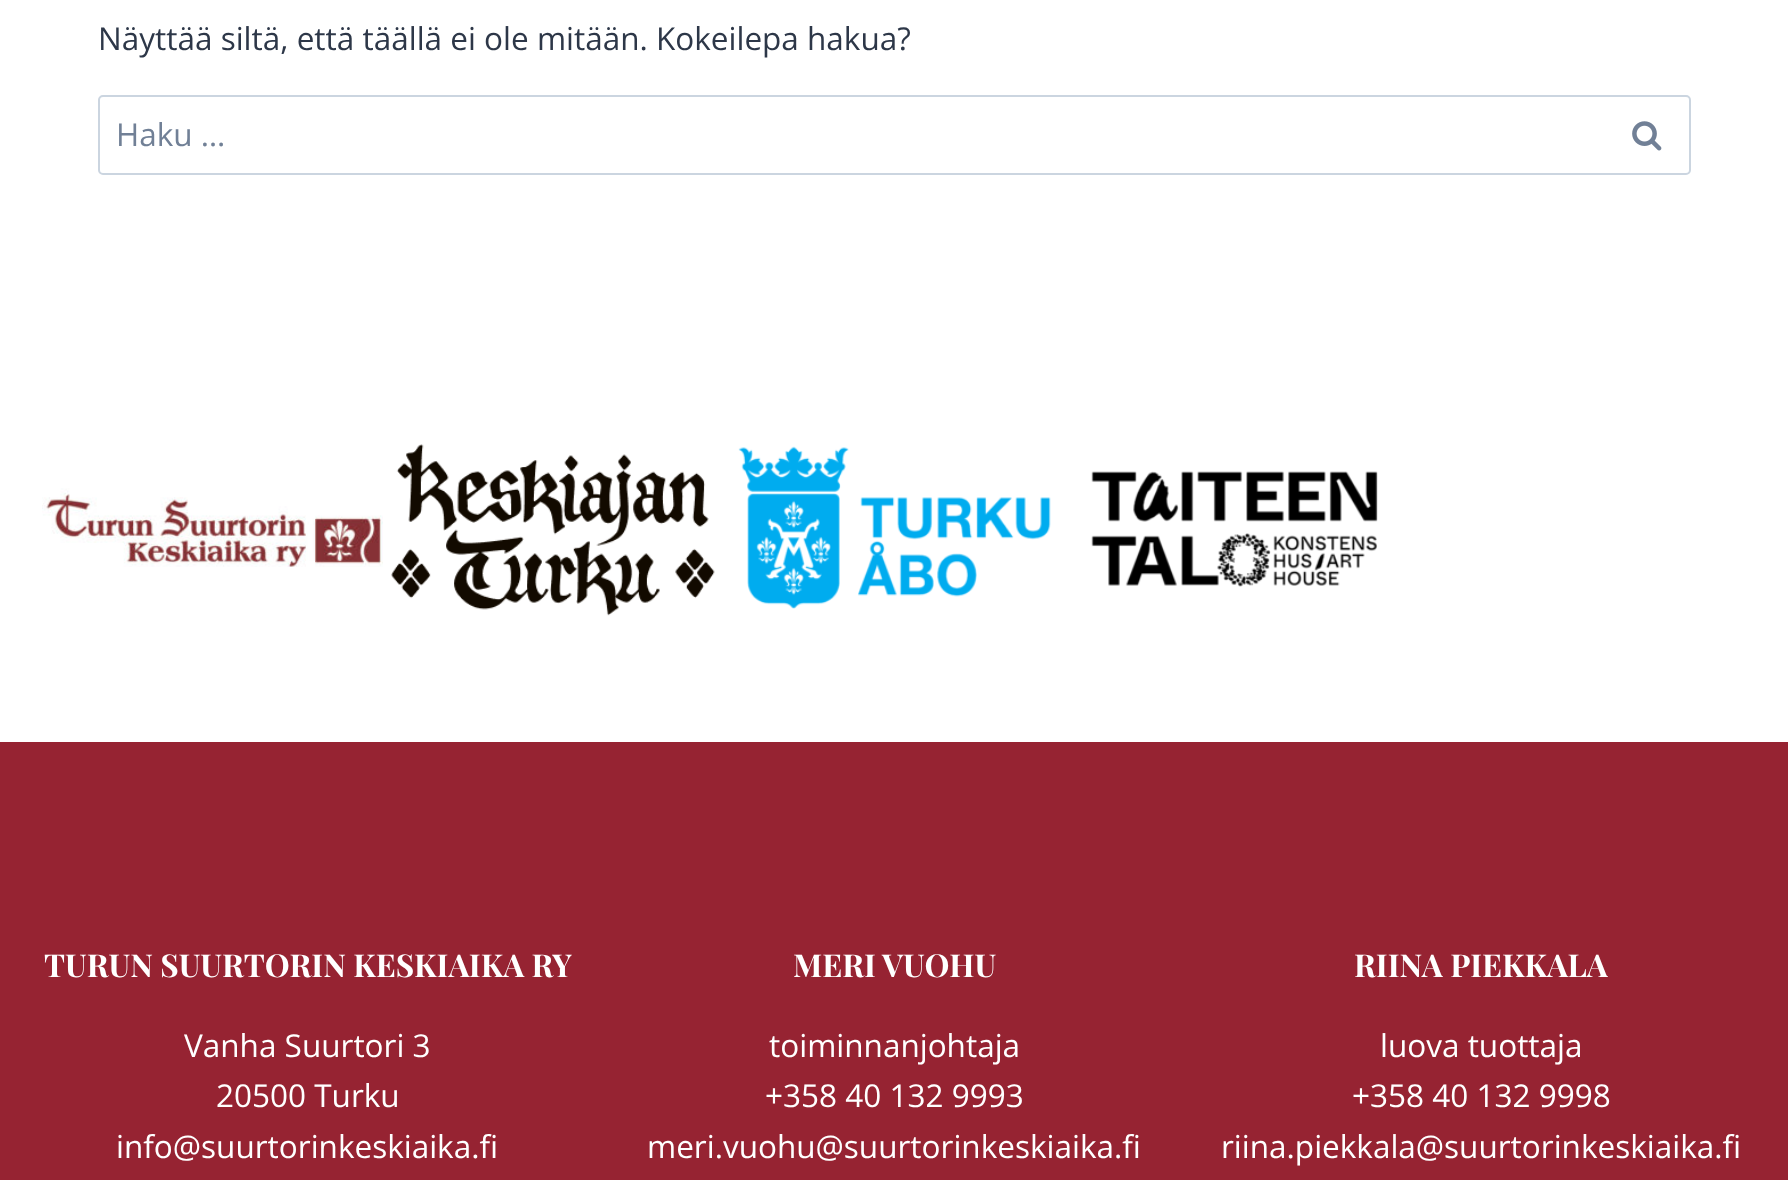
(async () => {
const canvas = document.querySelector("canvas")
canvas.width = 1788
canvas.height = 1180
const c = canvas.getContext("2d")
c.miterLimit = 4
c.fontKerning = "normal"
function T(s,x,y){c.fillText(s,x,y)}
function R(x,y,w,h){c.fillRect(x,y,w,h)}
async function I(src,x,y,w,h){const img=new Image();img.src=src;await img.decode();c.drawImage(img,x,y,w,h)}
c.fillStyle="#fff"
R(0,0,1788,1180)
c.font="31.5px Open Sans"
c.fillStyle="#2d3748"
T("Näyttää siltä, että täällä ei ole mitään. Kokeilepa hakua?",98,50)
c.beginPath()
c.roundRect(99,96,1591,78,4)
c.strokeStyle="#cbd5e0"
c.lineWidth=2
c.stroke()
c.fillStyle="#718096"
T("Haku …",116,146)
await I("1.png",1632,121,30,30)
await I("2.png",42,488,341,79)
await I("3.png",391,444,324,172)
await I("4.png",738,446,313,163)
await I("5.png",1091,471,287,116)
c.fillStyle="#962332"
R(0,742,1788,438)
c.font="bold 31.5px Playfair Display"
c.fillStyle="#fff"
T("TURUN SUURTORIN KESKIAIKA RY",44,977)
c.font="31.5px Open Sans"
T("Vanha Suurtori 3",184,1057)
T("20500 Turku",216,1107)
T("info@suurtorinkeskiaika.fi",116,1158)
c.font="bold 31.5px Playfair Display"
T("MERI VUOHU",793,977)
c.font="31.5px Open Sans"
T("toiminnanjohtaja",769,1057)
T("+358 40 132 9993",765,1107)
T("meri.vuohu@suurtorinkeskiaika.fi",647,1158)
c.font="bold 31.5px Playfair Display"
T("RIINA PIEKKALA",1354,977)
c.font="31.5px Open Sans"
T("luova tuottaja",1380,1057)
T("+358 40 132 9998",1352,1107)
T("riina.piekkala@suurtorinkeskiaika.fi",1221,1158)
})()
